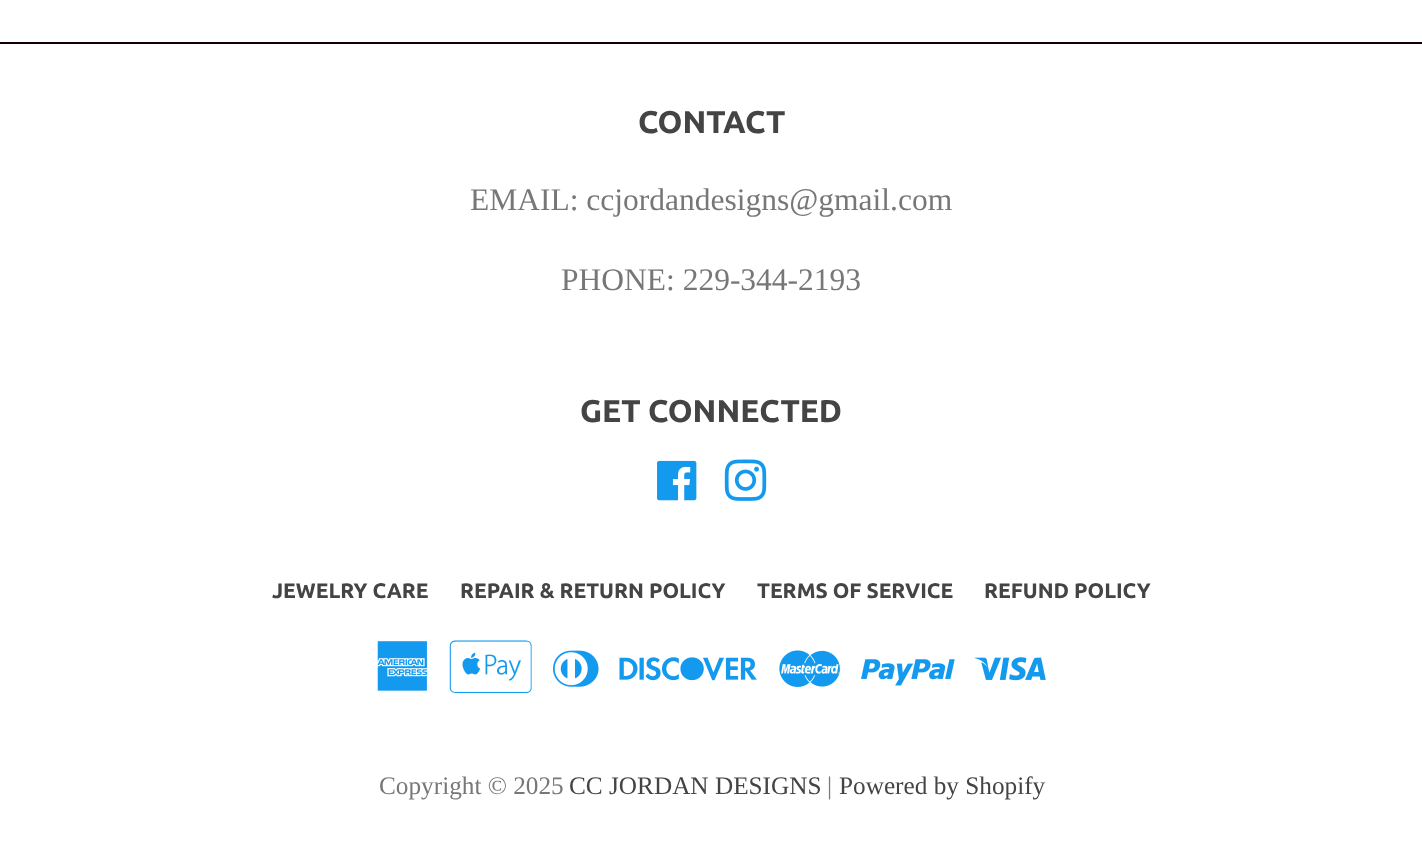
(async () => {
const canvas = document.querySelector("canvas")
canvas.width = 1422
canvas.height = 846
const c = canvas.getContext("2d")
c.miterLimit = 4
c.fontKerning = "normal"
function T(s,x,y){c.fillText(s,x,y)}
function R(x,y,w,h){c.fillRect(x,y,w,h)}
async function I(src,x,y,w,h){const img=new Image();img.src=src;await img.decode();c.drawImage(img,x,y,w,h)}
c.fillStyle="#fff"
R(0,0,1422,846)
c.fillStyle="#120202"
R(0,42,1422,2)
c.font="bold 31.5px Ubuntu"
c.fillStyle="#444"
T("CONTACT",638,133)
c.font="31.5px Liberation Serif"
c.fillStyle="#777"
T("EMAIL: ccjordandesigns@gmail.com",470,210)
T("PHONE: 229-344-2193",561,290)
c.font="bold 31.5px Ubuntu"
c.fillStyle="#444"
T("GET CONNECTED",580,422)
await I("1.png",657,460,40,41)
await I("2.png",724,459,43,42)
c.font="bold 21px Ubuntu"
T("JEWELRY CARE",272,598)
T("REPAIR & RETURN POLICY",460,598)
T("TERMS OF SERVICE",757,598)
T("REFUND POLICY",984,598)
await I("3.png",377,641,51,50)
await I("4.png",449,640,83,53)
await I("5.png",553,650,46,37)
await I("6.png",619,657,138,24)
await I("7.png",779,650,61,37)
await I("8.png",861,659,94,27)
await I("9.png",974,657,72,24)
c.font="25.25px Liberation Serif"
c.fillStyle="#777"
T("Copyright © 2025",379,794)
c.fillStyle="#444"
T("CC JORDAN DESIGNS",569,794)
c.fillStyle="#777"
T("|",827,794)
c.fillStyle="#444"
T("Powered by Shopify",839,794)
})()
